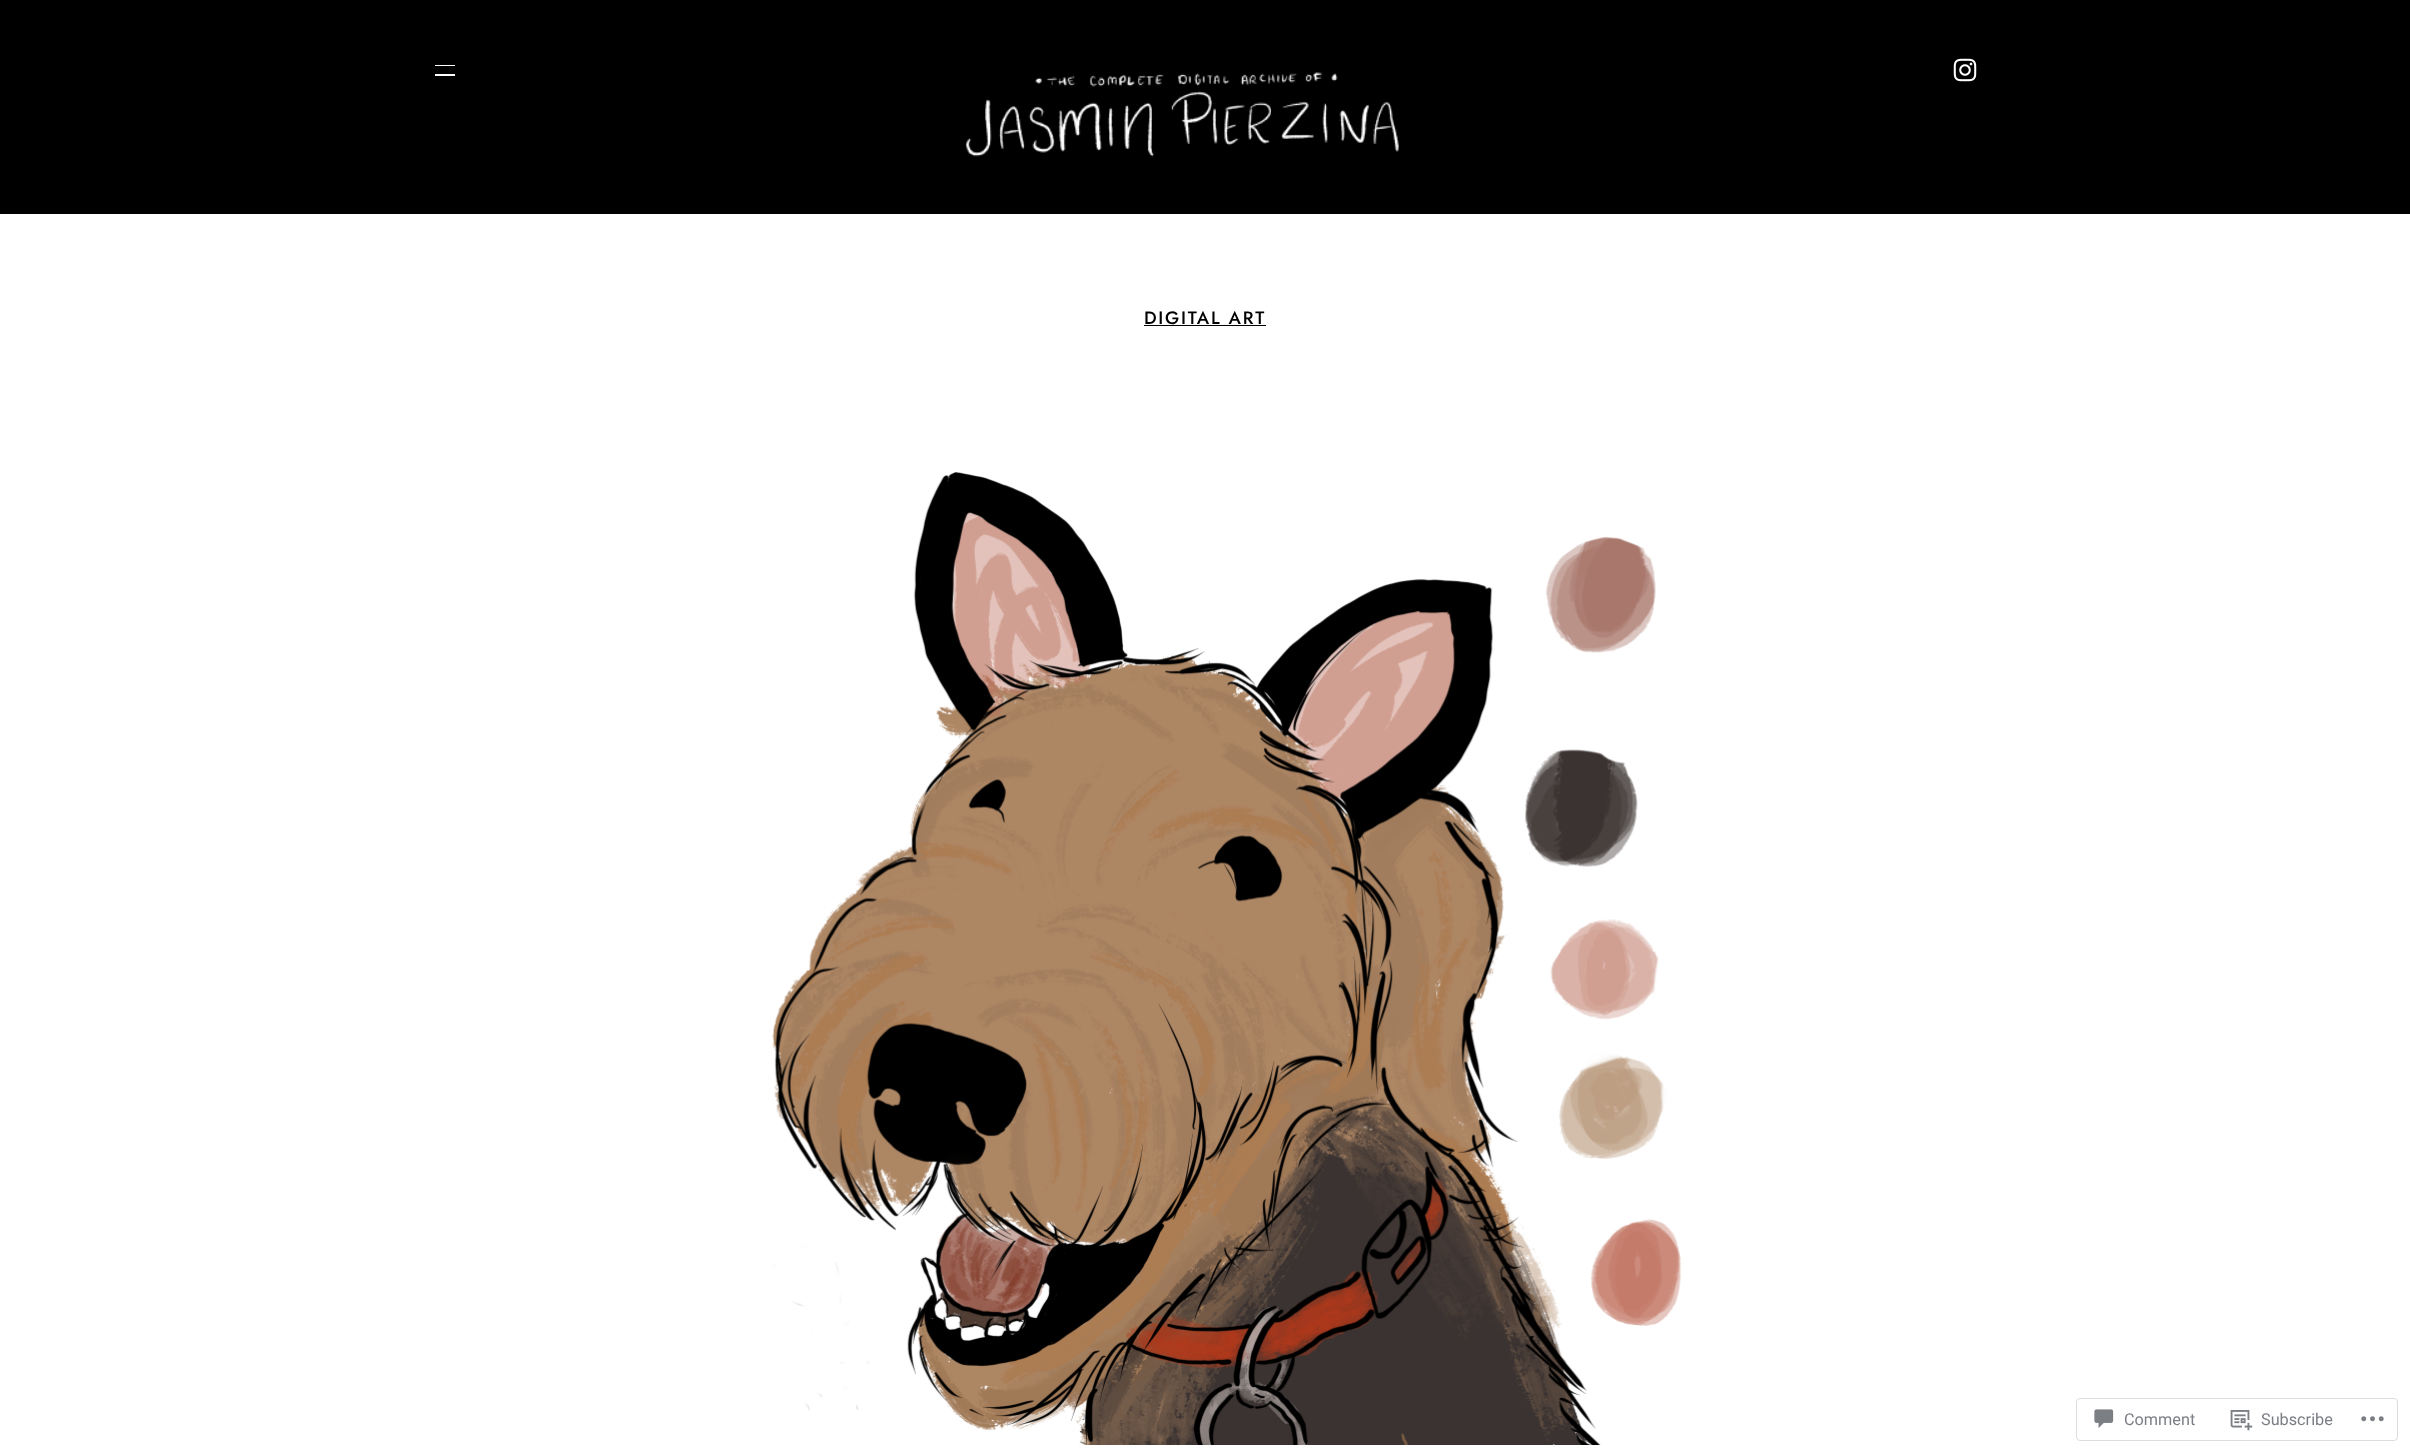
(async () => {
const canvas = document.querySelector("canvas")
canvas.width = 2410
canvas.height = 1453
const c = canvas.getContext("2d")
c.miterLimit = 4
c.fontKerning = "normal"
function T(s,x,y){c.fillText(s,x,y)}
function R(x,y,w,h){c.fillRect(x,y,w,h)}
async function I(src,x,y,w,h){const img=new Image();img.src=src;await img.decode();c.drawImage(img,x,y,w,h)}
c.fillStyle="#fff"
R(0,0,2410,1453)
c.fillStyle="#000"
R(0,0,2410,214)
c.fillStyle="#fff"
R(435,65,20,1)
R(435,74,20,2)
await I("1.png",1953,58,24,24)
await I("2.png",965,72,434,85)
c.letterSpacing="1.75px"
c.font="500 18px Jost"
c.fillStyle="#000"
T("DIGITAL ART",1144,324)
R(1144,325,122,1)
await I("3.png",772,472,910,973)
c.beginPath()
c.roundRect(2076.5,1398.5,321,42,3.5)
c.strokeStyle="#dddddf"
c.stroke()
await I("4.png",2094,1409,20,19)
c.letterSpacing="0px"
c.font="16.25px Roboto"
c.fillStyle="#7b7f85"
T("Comment",2124,1425)
await I("5.png",2230,1410,23,21)
T("Subscribe",2261,1425)
await I("6.png",2361,1416,23,6)
})()
